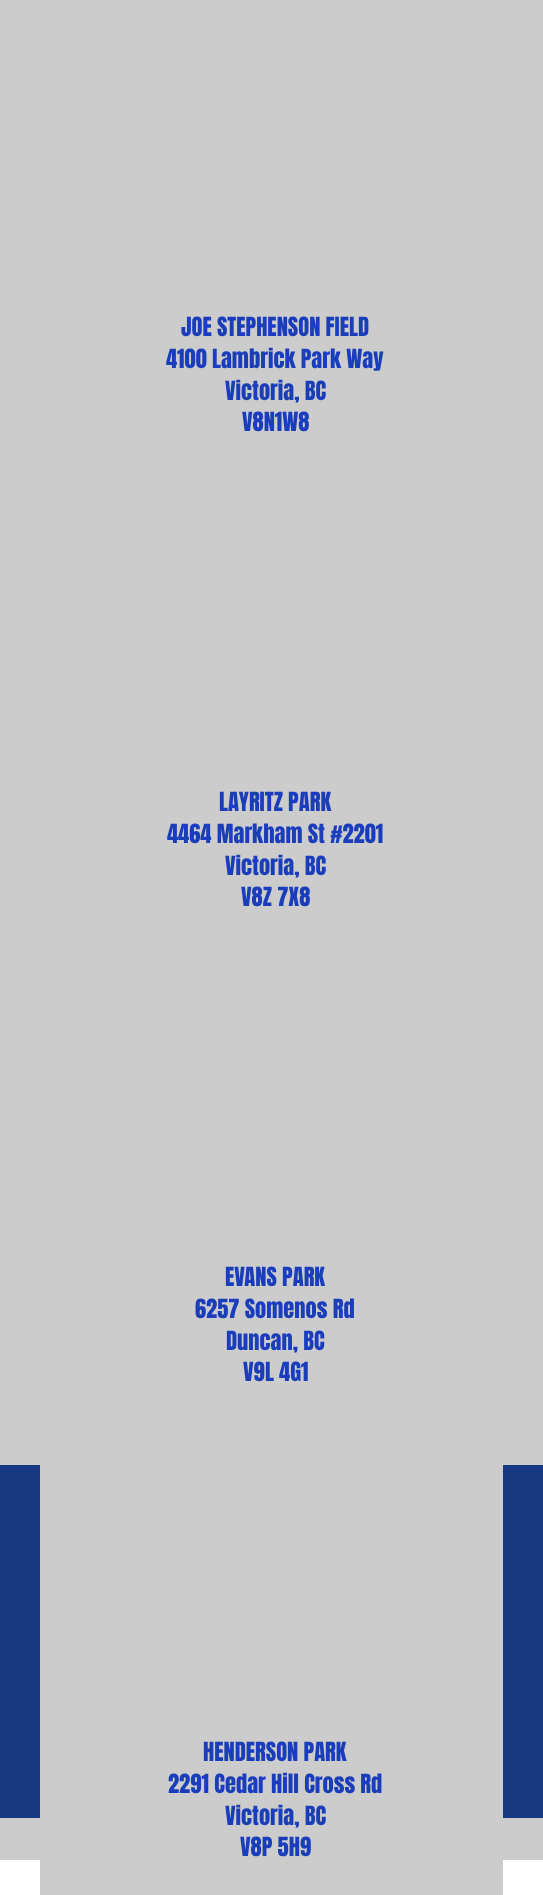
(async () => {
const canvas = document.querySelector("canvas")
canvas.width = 543
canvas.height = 1895
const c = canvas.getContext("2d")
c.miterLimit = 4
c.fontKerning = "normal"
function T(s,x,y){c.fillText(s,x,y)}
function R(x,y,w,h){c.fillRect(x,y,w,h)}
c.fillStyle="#fff"
R(0,0,543,1895)
c.fillStyle="#ccc"
R(0,0,543,1860)
c.fillStyle="#173981"
R(0,1465,543,353)
c.fillStyle="#ccc"
R(40,1465,463,430)
c.font="22.5px Anton"
c.fillStyle="#1a3dbc"
T("JOE STEPHENSON FIELD",181,336)
T("4100 Lambrick Park Way",166,368)
T("Victoria, BC",225,400)
T("V8N1W8",242,431)
T("LAYRITZ PARK",219,811)
T("4464 Markham St #2201",167,843)
T("Victoria, BC",225,875)
T("V8Z 7X8",241,906)
T("EVANS PARK",225,1286)
T("6257 Somenos Rd",195,1318)
T("Duncan, BC",226,1350)
T("V9L 4G1",243,1381)
T("HENDERSON PARK",203,1761)
T("2291 Cedar Hill Cross Rd",168,1793)
T("Victoria, BC",225,1825)
T("V8P 5H9",240,1856)
})()
